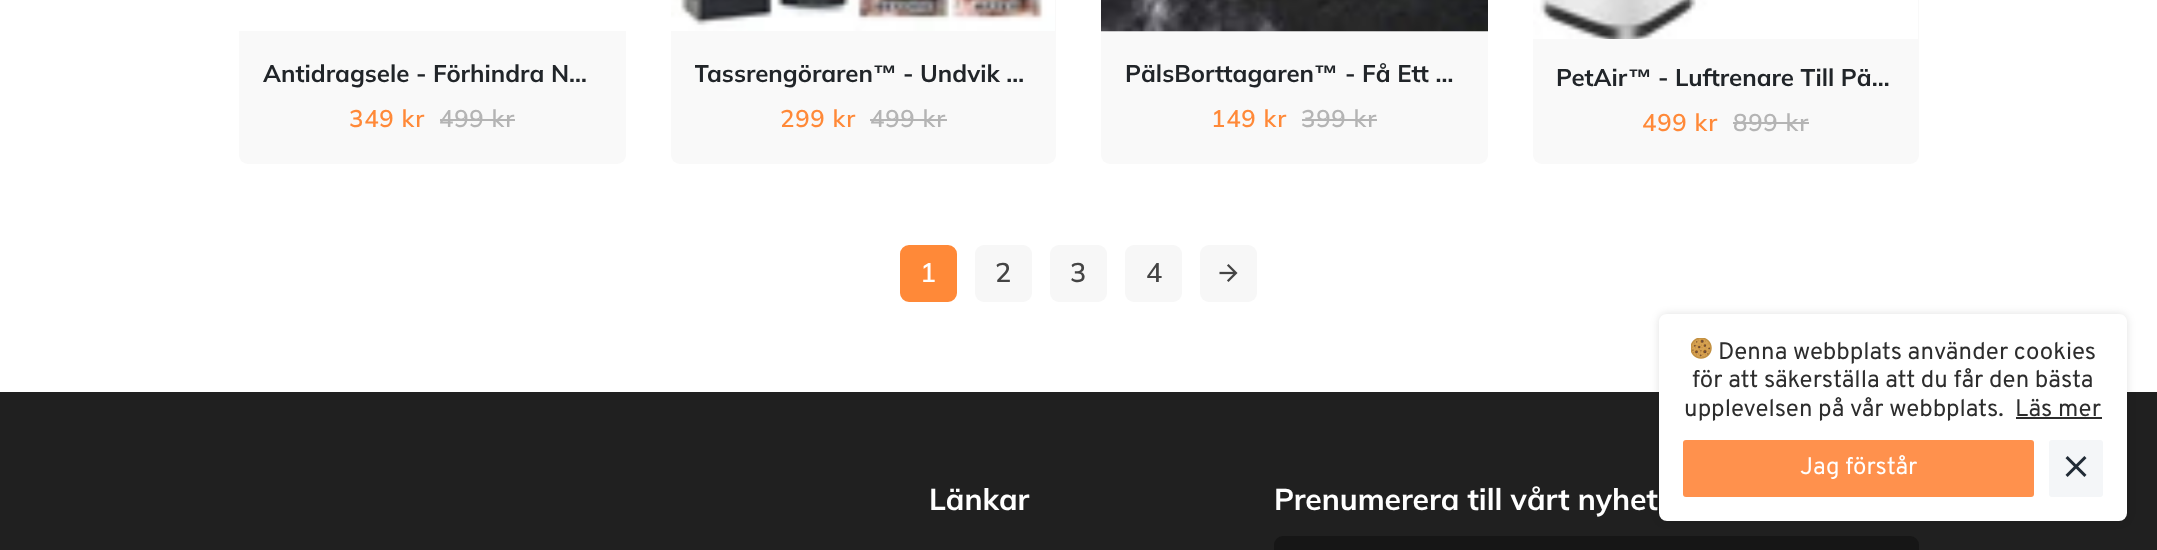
(async () => {
const canvas = document.querySelector("canvas")
canvas.width = 2157
canvas.height = 550
const c = canvas.getContext("2d")
c.miterLimit = 4
c.fontKerning = "normal"
function T(s,x,y){c.fillText(s,x,y)}
function R(x,y,w,h){c.fillRect(x,y,w,h)}
function Q(x,y,w,h,r){c.beginPath();c.roundRect(x,y,w,h,r);c.fill()}
async function I(src,x,y,w,h){const img=new Image();img.src=src;await img.decode();c.drawImage(img,x,y,w,h)}
let path
c.fillStyle="#fff"
R(0,0,2157,550)
c.fillStyle="#f9f9f9"
Q(239,-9,387,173,9)
c.fillStyle="#fff"
R(239,0,387,31)
c.font="bold 24px Muli"
c.fillStyle="#212529"
T("Antidragsele - Förhindra N…",263,82)
c.letterSpacing="0.75px"
c.font="600 24px Muli"
c.fillStyle="#ff8938"
T("349 kr",349,127)
c.fillStyle="#b4b4b4"
T("499 kr",439,127)
R(440,119,75,2)
c.fillStyle="#f9f9f9"
Q(671,-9,385,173,9)
await I("1.png",671,0,384,31)
c.save()
c.beginPath()
c.rect(695,60,337,29)
c.clip()
c.letterSpacing="0px"
c.font="bold 24px Muli"
c.fillStyle="#212529"
T("Tassrengöraren",694,82)
c.restore()
c.letterSpacing="0px"
c.font="bold 24px Liberation Sans"
c.fillStyle="#212529"
T("™",873,82)
c.font="bold 24px Muli"
T("- Undvik …",903,82)
c.letterSpacing="0.75px"
c.font="600 24px Muli"
c.fillStyle="#ff8938"
T("299 kr",780,127)
c.fillStyle="#b4b4b4"
T("499 kr",870,127)
R(870,119,77,2)
c.fillStyle="#f9f9f9"
Q(1101,-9,387,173,9)
await I("2.png",1101,0,387,32)
c.letterSpacing="0px"
c.font="bold 24px Muli"
c.fillStyle="#212529"
T("PälsBorttagaren",1125,82)
c.font="bold 24px Liberation Sans"
T("™",1314,82)
c.font="bold 24px Muli"
T("- Få Ett …",1345,82)
c.letterSpacing="0.75px"
c.font="600 24px Muli"
c.fillStyle="#ff8938"
T("149 kr",1211,127)
c.fillStyle="#b4b4b4"
T("399 kr",1301,127)
R(1302,119,75,2)
c.fillStyle="#f9f9f9"
Q(1533,-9,386,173,9)
await I("3.png",1533,0,385,39)
c.letterSpacing="0px"
c.font="bold 24px Muli"
c.fillStyle="#212529"
T("PetAir",1556,86)
c.font="bold 24px Liberation Sans"
T("™",1628,86)
c.font="bold 24px Muli"
T("- Luftrenare Till Pä…",1658,86)
c.letterSpacing="0.75px"
c.font="600 24px Muli"
c.fillStyle="#ff8938"
T("499 kr",1642,131)
c.fillStyle="#b4b4b4"
T("899 kr",1733,131)
R(1733,122,76,2)
c.fillStyle="#ff8938"
c.beginPath()
c.roundRect(901,246,55,55,8)
c.fill()
c.strokeStyle="#ff8938"
c.lineWidth=2
c.stroke()
c.letterSpacing="0px"
c.font="600 27px Muli"
c.fillStyle="#fff"
T("1",920,282)
c.fillStyle="#f7f7f7"
Q(975,245,57,57,9)
c.fillStyle="#444"
T("2",995,282)
c.fillStyle="#f7f7f7"
Q(1050,245,57,57,9)
c.fillStyle="#444"
T("3",1070,282)
c.fillStyle="#f7f7f7"
Q(1125,245,57,57,9)
c.fillStyle="#444"
T("4",1146,282)
c.fillStyle="#f7f7f7"
Q(1200,245,57,57,9)
await I("4.png",1219,264,19,18)
c.fillStyle="#202020"
R(0,392,2157,158)
c.font="bold 30px Muli"
c.fillStyle="#fff"
T("Länkar",929,510)
T("Prenumerera till vårt nyhet",1274,510)
c.fillStyle="#161616"
Q(1274,536,645,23,9)
c.fillStyle="#fff"
Q(1659,314,468,207,8)
c.save()
path = new Path2D("M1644 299h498v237h-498zm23 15h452c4.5 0 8 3.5 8 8v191c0 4.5-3.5 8-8 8h-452c-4.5 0-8-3.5-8-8v-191c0-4.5 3.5-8 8-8z")
c.clip(path,"evenodd")
c.fillStyle="#0000001f"
c.filter="blur(4.5px)"
c.beginPath()
c.roundRect(1659,314,468,207,8)
c.fill()
c.filter="none"
c.restore()
await I("5.png",1691,338,21,21)
c.font="24px Overpass"
c.fillStyle="#2d2d2d"
T("Denna webbplats använder cookies",1718,359)
T("för att säkerställa att du får den bästa",1692,387)
T("upplevelsen på vår webbplats.",1684,416)
T("Läs mer",2015,416)
R(2016,417,86,2)
c.fillStyle="#ff914d"
Q(1683,440,351,57,3)
c.fillStyle="#fff"
T("Jag förstår",1800,474)
c.fillStyle="#f4f6f8"
Q(2049,440,54,57,3)
await I("6.png",2065,456,22,21)
})()
